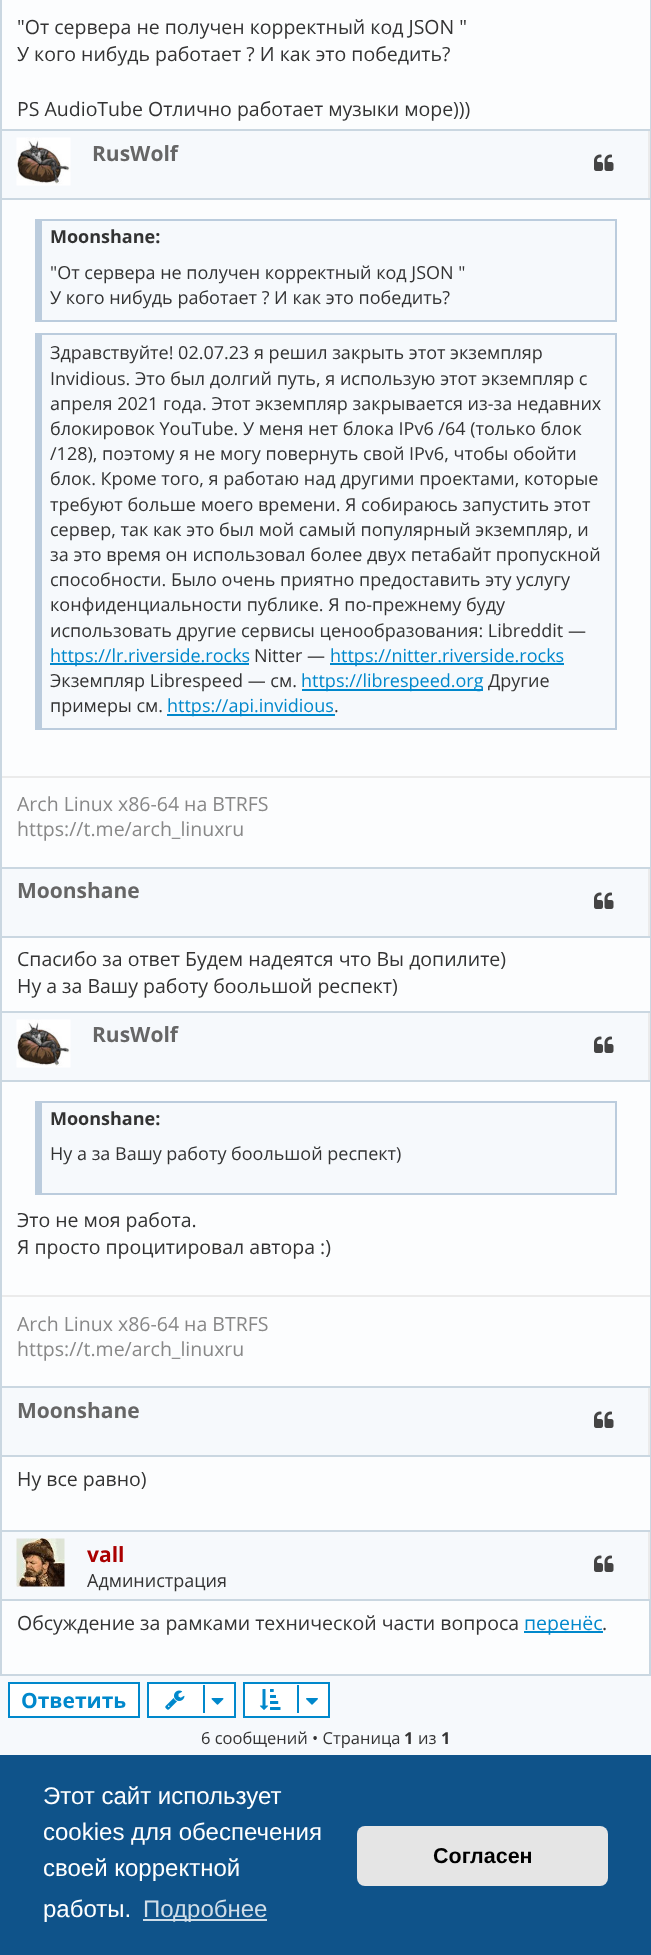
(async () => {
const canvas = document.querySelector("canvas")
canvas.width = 651
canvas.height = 1955
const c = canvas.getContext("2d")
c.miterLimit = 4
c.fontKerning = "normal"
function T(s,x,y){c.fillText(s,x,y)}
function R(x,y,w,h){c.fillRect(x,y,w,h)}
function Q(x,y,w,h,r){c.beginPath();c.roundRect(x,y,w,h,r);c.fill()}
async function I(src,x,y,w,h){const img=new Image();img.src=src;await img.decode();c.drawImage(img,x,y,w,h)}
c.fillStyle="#f6f9fc"
R(0,0,651,1955)
c.fillStyle="#fcfdfe"
R(2,0,648,129)
c.fillStyle="#cad7e1"
R(650,0,1,129)
R(0,0,2,129)
c.font="19.5px Open Sans"
c.fillStyle="#333"
T("\"От сервера не получен корректный код JSON \"",17,34)
T("У кого нибудь работает ? И как это победить?",17,61)
T("PS AudioTube Отлично работает музыки море)))",17,116)
c.fillStyle="#fcfdfe"
R(2,200,648,667)
c.fillStyle="#cad7e1"
R(0,129,651,2)
R(650,129,1,738)
R(0,129,2,738)
c.fillStyle="#ebebeb"
R(648,131,2,69)
c.fillStyle="#cad7e1"
R(2,198,648,2)
await I("1.png",16,137,55,49)
c.font="bold 21px Open Sans"
c.fillStyle="#666"
T("RusWolf",92,161)
await I("2.png",594,154,20,17)
c.fillStyle="#f6f9fc"
R(42,221,573,99)
c.fillStyle="#bcd"
R(35,219,582,2)
R(615,219,2,102)
R(35,320,582,2)
R(35,219,7,102)
c.font="bold 18px Open Sans"
c.fillStyle="#333"
T("Moonshane:",50,243)
c.font="18px Open Sans"
T("\"От сервера не получен корректный код JSON \"",50,279)
T("У кого нибудь работает ? И как это победить?",50,304)
c.fillStyle="#f6f9fc"
R(42,335,573,393)
c.fillStyle="#bcd"
R(35,333,582,2)
R(615,333,2,396)
R(35,728,582,2)
R(35,333,7,396)
c.fillStyle="#333"
T("Здравствуйте! 02.07.23 я решил закрыть этот экземпляр",50,359)
T("Invidious. Это был долгий путь, я использую этот экземпляр с",50,385)
T("апреля 2021 года. Этот экземпляр закрывается из-за недавних",50,410)
T("блокировок YouTube. У меня нет блока IPv6 /64 (только блок",50,435)
T("/128), поэтому я не могу повернуть свой IPv6, чтобы обойти",50,460)
T("блок. Кроме того, я работаю над другими проектами, которые",50,485)
T("требуют больше моего времени. Я собираюсь запустить этот",50,511)
T("сервер, так как это был мой самый популярный экземпляр, и",50,536)
T("за это время он использовал более двух петабайт пропускной",50,561)
T("способности. Было очень приятно предоставить эту услугу",50,586)
T("конфиденциальности публике. Я по-прежнему буду",50,611)
T("использовать другие сервисы ценообразования: Libreddit —",50,637)
c.fillStyle="#08c"
R(50,663,199,2)
T("https://lr.riverside.rocks",50,662)
c.fillStyle="#333"
T("Nitter —",254,662)
c.fillStyle="#08c"
R(330,663,234,2)
T("https://nitter.riverside.rocks",330,662)
c.fillStyle="#333"
T("Экземпляр Librespeed — см.",50,687)
c.fillStyle="#08c"
R(302,689,181,2)
T("https://librespeed.org",301,687)
c.fillStyle="#333"
T("Другие",488,687)
T("примеры см.",50,712)
c.fillStyle="#08c"
R(167,714,168,2)
T("https://api.invidious",167,712)
c.fillStyle="#333"
T(".",334,712)
c.fillStyle="#ebebeb"
R(2,776,648,2)
c.font="19.5px Open Sans"
c.fillStyle="#888"
T("Arch Linux x86-64 на BTRFS",17,811)
T("https://t.me/arch_linuxru",17,836)
c.fillStyle="#fcfdfe"
R(2,938,648,73)
c.fillStyle="#cad7e1"
R(0,867,651,2)
R(650,867,1,144)
R(0,867,2,144)
c.fillStyle="#ebebeb"
R(648,869,2,69)
c.fillStyle="#cad7e1"
R(2,936,648,2)
c.font="bold 21px Open Sans"
c.fillStyle="#666"
T("Moonshane",17,898)
await I("2.png",594,892,20,17)
c.font="19.5px Open Sans"
c.fillStyle="#333"
T("Спасибо за ответ Будем надеятся что Вы допилите)",17,966)
T("Ну а за Вашу работу боольшой респект)",17,993)
c.fillStyle="#fcfdfe"
R(2,1082,648,304)
c.fillStyle="#cad7e1"
R(0,1011,651,2)
R(650,1011,1,375)
R(0,1011,2,375)
c.fillStyle="#ebebeb"
R(648,1013,2,69)
c.fillStyle="#cad7e1"
R(2,1080,648,2)
await I("3.png",16,1019,55,49)
c.font="bold 21px Open Sans"
c.fillStyle="#666"
T("RusWolf",92,1042)
await I("2.png",594,1036,20,17)
c.fillStyle="#f6f9fc"
R(42,1103,573,90)
c.fillStyle="#bcd"
R(35,1101,582,2)
R(615,1101,2,93)
R(35,1193,582,2)
R(35,1101,7,93)
c.font="bold 18px Open Sans"
c.fillStyle="#333"
T("Moonshane:",50,1125)
c.font="18px Open Sans"
T("Ну а за Вашу работу боольшой респект)",50,1160)
c.font="19.5px Open Sans"
T("Это не моя работа.",17,1227)
T("Я просто процитировал автора :)",17,1254)
c.fillStyle="#ebebeb"
R(2,1295,648,2)
c.fillStyle="#888"
T("Arch Linux x86-64 на BTRFS",17,1331)
T("https://t.me/arch_linuxru",17,1356)
c.fillStyle="#fcfdfe"
R(2,1457,648,73)
c.fillStyle="#cad7e1"
R(0,1386,651,2)
R(650,1386,1,144)
R(0,1386,2,144)
c.fillStyle="#ebebeb"
R(648,1388,2,69)
c.fillStyle="#cad7e1"
R(2,1455,648,2)
c.font="bold 21px Open Sans"
c.fillStyle="#666"
T("Moonshane",17,1418)
await I("2.png",594,1411,20,17)
c.font="19.5px Open Sans"
c.fillStyle="#333"
T("Ну все равно)",17,1486)
c.fillStyle="#fcfdfe"
R(2,1601,647,73)
c.strokeStyle="#cad7e1"
c.lineWidth=2
c.strokeRect(1,1531,649,144)
c.fillStyle="#ebebeb"
R(648,1532,2,69)
c.fillStyle="#cad7e1"
R(2,1599,648,2)
await I("4.png",16,1538,49,49)
c.font="bold 21px Open Sans"
c.fillStyle="#a00"
T("vall",87,1562)
c.font="18px Open Sans"
c.fillStyle="#333"
T("Администрация",87,1587)
await I("2.png",594,1555,20,17)
c.font="19.5px Open Sans"
T("Обсуждение за рамками технической части вопроса",17,1630)
c.fillStyle="#08c"
R(524,1631,79,2)
T("перенёс",524,1630)
c.fillStyle="#333"
T(".",602,1630)
c.fillStyle="#fff"
c.beginPath()
c.rect(9,1683,130,34)
c.fill()
c.strokeStyle="#08c"
c.stroke()
c.font="bold 21px Open Sans"
c.fillStyle="#08c"
T("Ответить",21,1708)
c.fillStyle="#fff"
c.beginPath()
c.rect(148,1683,87,34)
c.fill()
c.stroke()
await I("5.png",165,1690,20,20)
c.fillStyle="#08c"
R(203,1685,2,28)
await I("6.png",211,1698,13,7)
c.fillStyle="#fff"
c.beginPath()
c.rect(244,1683,85,34)
c.fill()
c.stroke()
await I("7.png",259,1689,22,21)
c.fillStyle="#08c"
R(297,1685,2,28)
await I("8.png",306,1698,12,7)
c.font="16.5px Open Sans"
c.fillStyle="#333"
T("6 сообщений • Страница",201,1744)
c.font="bold 16.5px Open Sans"
T("1",404,1744)
c.font="16.5px Open Sans"
T("из",418,1744)
c.font="bold 16.5px Open Sans"
T("1",441,1744)
c.fillStyle="#0f538a"
R(0,1755,651,200)
c.font="24px Liberation Sans"
c.fillStyle="#fff"
T("Этот сайт использует",43,1804)
T("cookies для обеспечения",43,1840)
T("своей корректной",43,1876)
T("работы.",43,1917)
c.fillStyle="#cfdde8"
R(143,1919,124,2)
T("Подробнее",143,1917)
c.fillStyle="#e5e5e5"
Q(357,1826,251,60,8)
c.font="bold 21.5px Liberation Sans"
c.fillStyle="#000"
T("Согласен",433,1863)
})()
